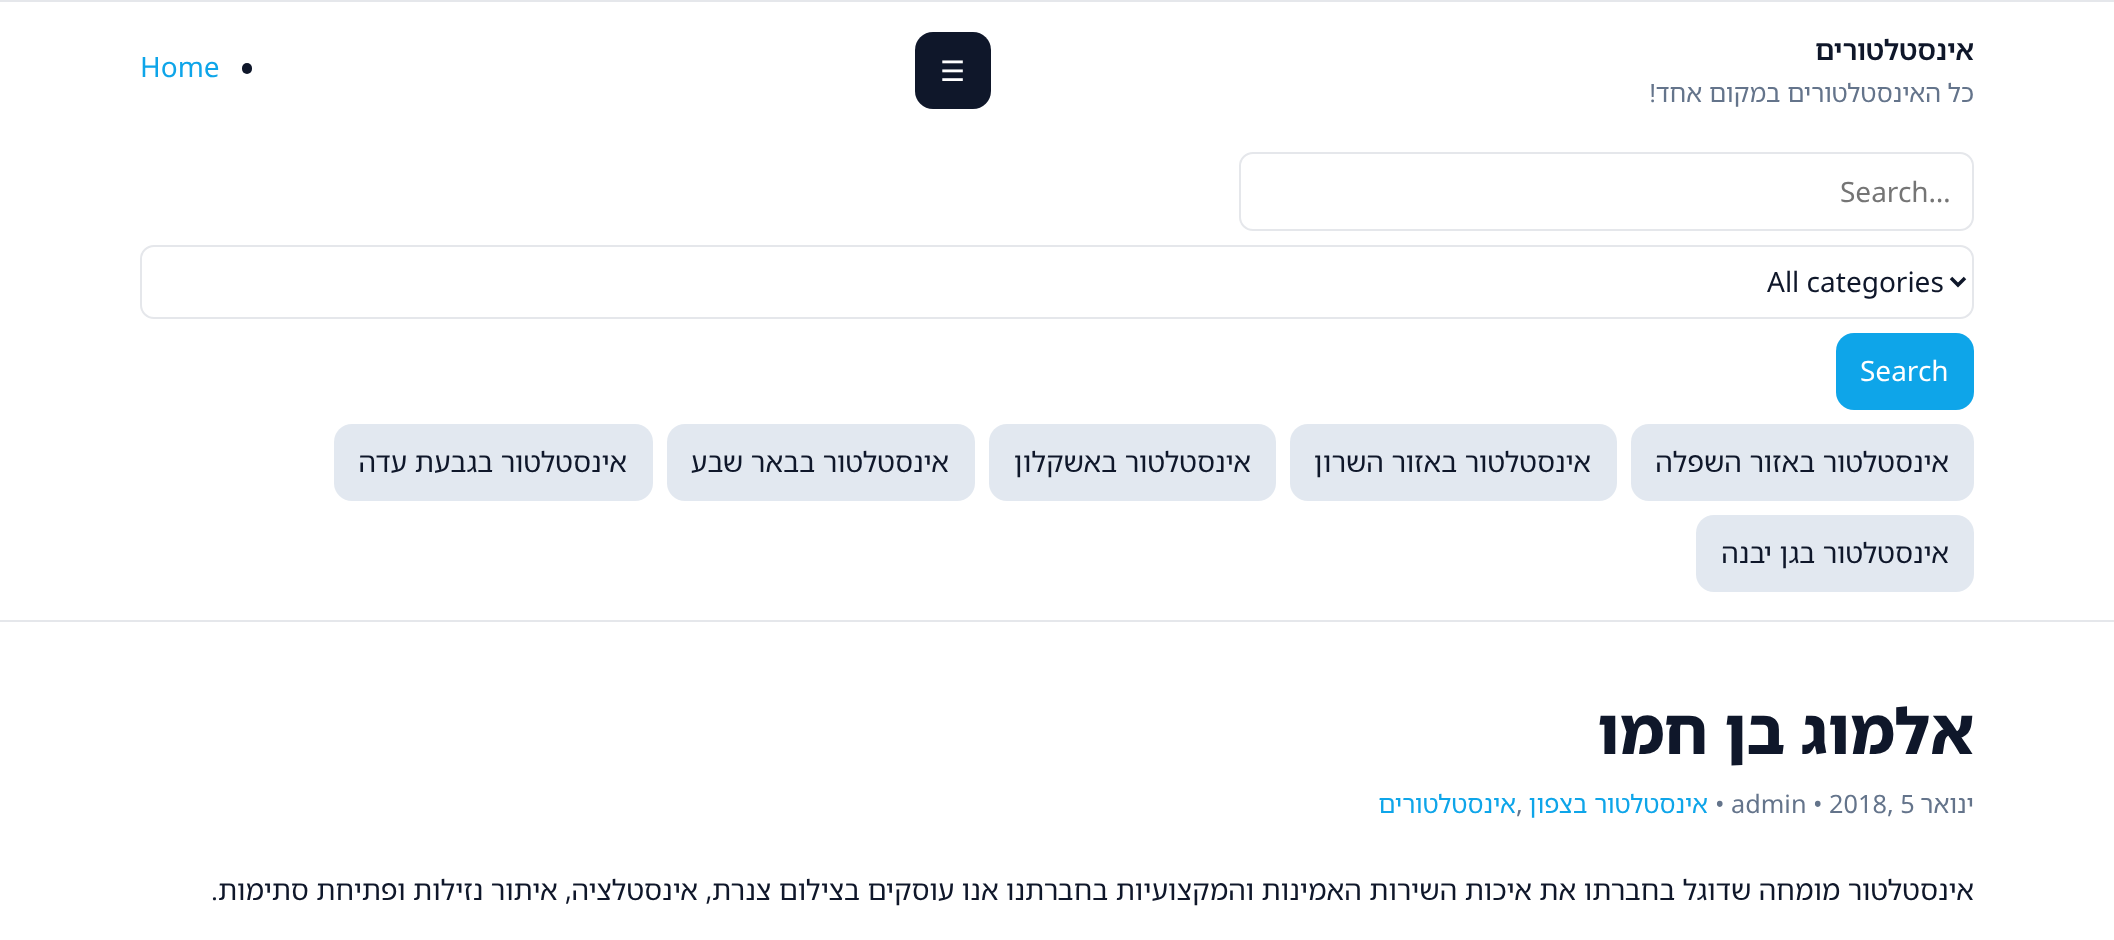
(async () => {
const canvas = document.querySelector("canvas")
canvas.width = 2114
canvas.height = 940
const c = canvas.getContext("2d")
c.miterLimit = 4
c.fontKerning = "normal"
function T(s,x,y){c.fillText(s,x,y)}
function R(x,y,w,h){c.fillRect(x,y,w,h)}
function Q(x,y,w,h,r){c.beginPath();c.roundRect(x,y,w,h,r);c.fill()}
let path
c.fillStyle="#fff"
R(0,0,2114,940)
c.fillStyle="#e5e7eb"
R(0,0,2114,2)
R(0,620,2114,2)
c.direction="rtl"
c.font="600 28px Noto Sans Hebrew"
c.fillStyle="#0f172a"
T("אינסטלטורים",1974,60)
c.font="25.25px Noto Sans Hebrew"
c.fillStyle="#64748b"
T("כל האינסטלטורים במקום אחד!",1974,102)
c.fillStyle="#0f172a"
Q(915,32,76,77,18)
c.direction="ltr"
c.font="28px DejaVu Sans"
c.fillStyle="#fff"
T("☰",940,81)
c.fillStyle="#0f172a"
Q(242,63,10,11,5)
c.font="28px Noto Sans"
c.fillStyle="#0ea5e9"
T("Home",140,77)
c.beginPath()
c.roundRect(1240,153,733,77,13)
c.strokeStyle="#e5e7eb"
c.lineWidth=2
c.stroke()
c.fillStyle="#757575"
T("Search…",1840,202)
c.beginPath()
c.roundRect(141,246,1832,72,13)
c.stroke()
path = new Path2D("M1951 278l7 7l7-7")
c.strokeStyle="#0f172a"
c.lineWidth=3.5
c.stroke(path)
c.fillStyle="#0f172a"
T("All categories",1767,292)
c.fillStyle="#0ea5e9"
Q(1836,333,138,77,18)
c.fillStyle="#fff"
T("Search",1860,381)
c.fillStyle="#e2e8f0"
Q(1631,424,343,77,18)
c.direction="rtl"
c.font="28px Noto Sans Hebrew"
c.fillStyle="#0f172a"
T("אינסטלטור באזור השפלה",1949,472)
c.fillStyle="#e2e8f0"
Q(1290,424,327,77,18)
c.fillStyle="#0f172a"
T("אינסטלטור באזור השרון",1591,472)
c.fillStyle="#e2e8f0"
Q(989,424,287,77,18)
c.fillStyle="#0f172a"
T("אינסטלטור באשקלון",1251,472)
c.fillStyle="#e2e8f0"
Q(667,424,308,77,18)
c.fillStyle="#0f172a"
T("אינסטלטור בבאר שבע",949,472)
c.fillStyle="#e2e8f0"
Q(334,424,319,77,18)
c.fillStyle="#0f172a"
T("אינסטלטור בגבעת עדה",627,472)
c.fillStyle="#e2e8f0"
Q(1696,515,278,77,18)
c.fillStyle="#0f172a"
T("אינסטלטור בגן יבנה",1949,563)
c.wordSpacing="-1px"
c.font="800 63px Noto Sans Hebrew"
T("אלמוג בן חמו",1974,754)
c.wordSpacing="0px"
c.font="25.25px Noto Sans Hebrew"
c.fillStyle="#64748b"
T("ינואר",1974,813)
c.direction="ltr"
c.font="25.25px Noto Sans"
T("• admin • 2018, 5",1715,813)
c.direction="rtl"
c.font="25.25px Noto Sans Hebrew"
c.fillStyle="#0ea5e9"
T("אינסטלטור בצפון",1708,813)
c.direction="ltr"
c.font="25.25px Noto Sans"
c.fillStyle="#64748b"
T(",",1516,813)
c.direction="rtl"
c.font="25.25px Noto Sans Hebrew"
c.fillStyle="#0ea5e9"
T("אינסטלטורים",1516,813)
c.wordSpacing="-0.1px"
c.font="28px Noto Sans Hebrew"
c.fillStyle="#0f172a"
T("אינסטלטור מומחה שדוגל בחברתו את איכות השירות האמינות והמקצועיות בחברתנו אנו עוסקים בצילום צנרת, אינסטלציה, איתור נזילות ופתיחת סתימות.",1974,900)
})()
